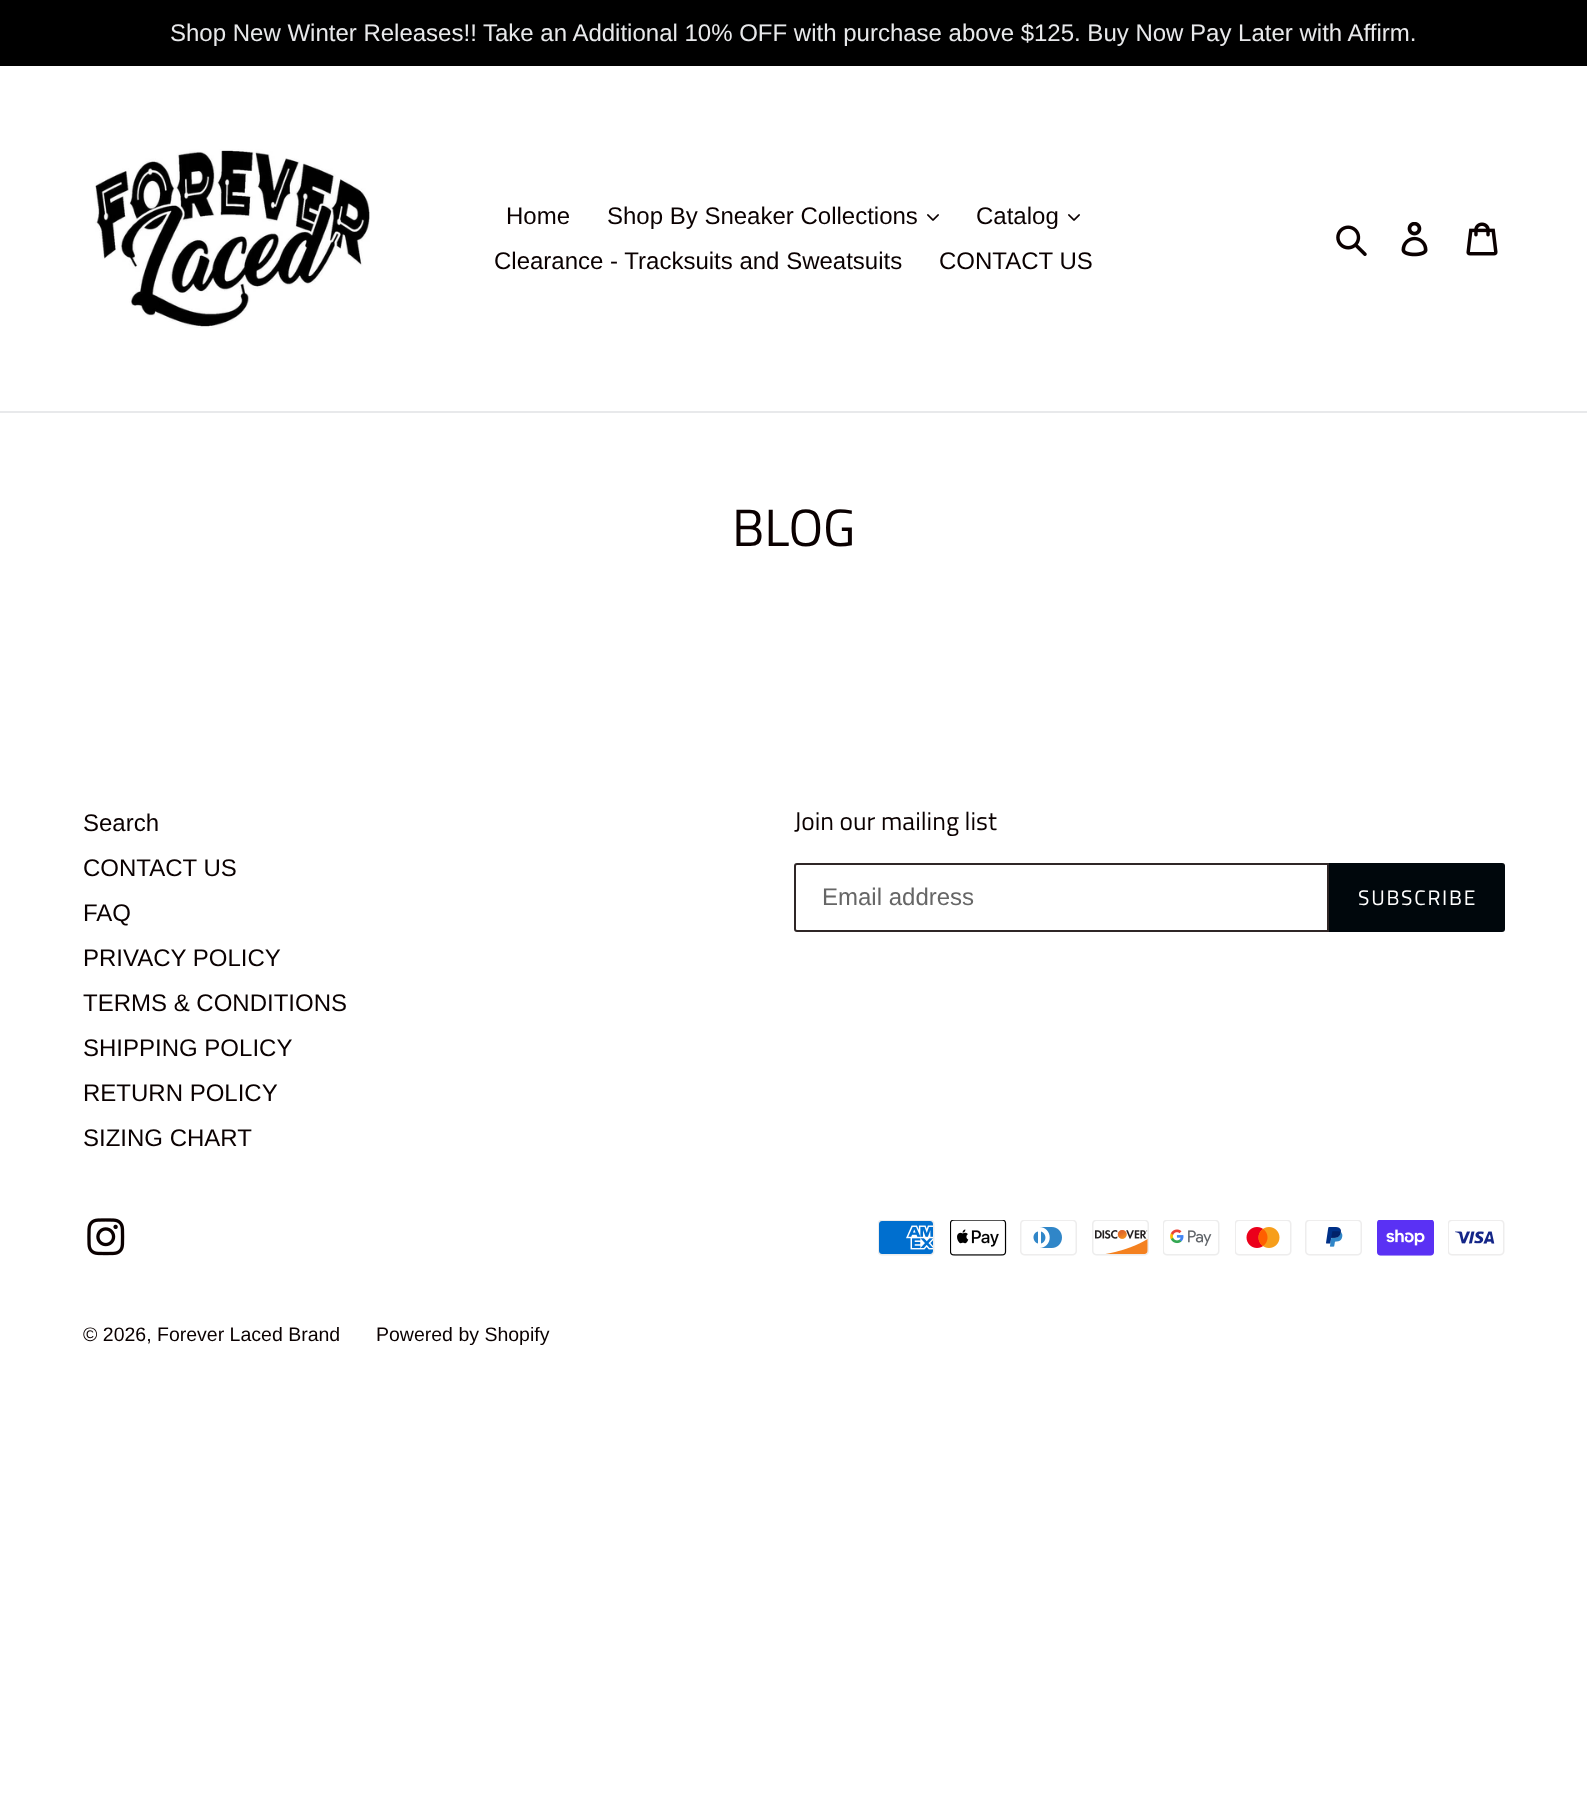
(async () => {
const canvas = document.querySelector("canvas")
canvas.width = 1587
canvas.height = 1808
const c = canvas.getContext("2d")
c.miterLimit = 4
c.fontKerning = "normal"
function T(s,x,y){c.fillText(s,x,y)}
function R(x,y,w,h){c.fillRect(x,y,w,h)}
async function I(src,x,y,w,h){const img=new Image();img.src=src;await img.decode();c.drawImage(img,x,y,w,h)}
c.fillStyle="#fff"
R(0,0,1587,1808)
c.fillStyle="#000"
R(0,0,1587,66)
c.font="24px Arimo"
c.fillStyle="#e8e9eb"
T("Shop New Winter Releases!!",170,41)
T("Take an Additional 10% OFF with purchase above $125. Buy Now Pay Later with Affirm.",483,41)
R(0,411,1587,2)
await I("1.png",94,149,276,179)
c.fillStyle="#0a0000"
T("Home",506,224)
T("Shop By Sneaker Collections",607,224)
await I("2.png",927,214,12,7)
T("Catalog",976,224)
await I("2.png",1068,214,12,7)
T("Clearance - Tracksuits and Sweatsuits",494,269)
T("CONTACT US",939,269)
await I("3.png",1336,225,31,31)
await I("4.png",1401,222,27,35)
await I("5.png",1466,222,32,34)
c.font="52.5px Titillium Web"
T("BLOG",732,546)
c.font="24px Arimo"
T("Search",83,831)
T("CONTACT US",83,876)
T("FAQ",83,921)
T("PRIVACY POLICY",83,966)
T("TERMS & CONDITIONS",83,1011)
T("SHIPPING POLICY",83,1056)
T("RETURN POLICY",83,1101)
T("SIZING CHART",83,1146)
c.font="25.5px Titillium Web"
T("Join our mailing list",794,830)
c.beginPath()
c.roundRect(795,864,533,67,[2,0,0,2])
c.strokeStyle="#2f2626"
c.lineWidth=2
c.stroke()
c.font="24px Arimo"
c.fillStyle="#666"
T("Email address",822,905)
c.fillStyle="#00070c"
c.beginPath()
c.roundRect(1329,863,176,69,[0,3,3,0])
c.fill()
c.letterSpacing="1.75px"
c.font="21px Titillium Web"
c.fillStyle="#fff"
T("SUBSCRIBE",1358,905)
await I("6.png",87,1218,38,38)
await I("7.png",878,1220,57,36)
await I("8.png",950,1220,57,36)
await I("9.png",1020,1220,57,36)
await I("10.png",1092,1220,57,36)
await I("11.png",1163,1220,57,36)
await I("12.png",1235,1220,57,36)
await I("13.png",1305,1220,57,36)
await I("14.png",1377,1220,57,36)
await I("15.png",1448,1220,57,36)
c.letterSpacing="0px"
c.font="19.5px Arimo"
c.fillStyle="#0a0000"
T("© 2026, Forever Laced Brand",83,1341)
T("Powered by Shopify",376,1341)
})()
